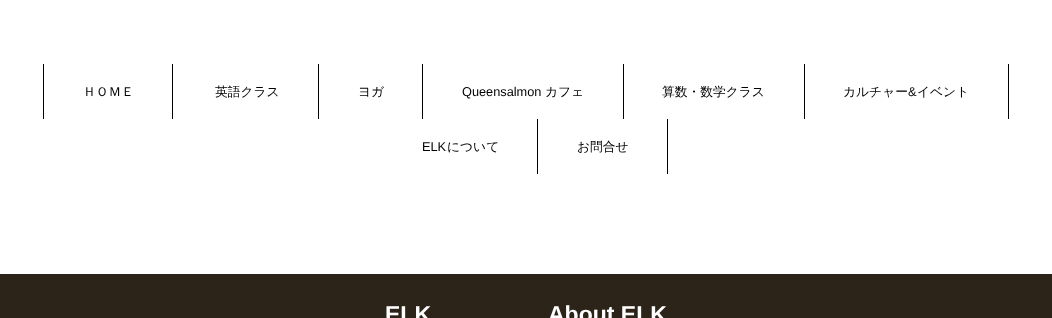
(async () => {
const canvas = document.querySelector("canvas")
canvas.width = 1052
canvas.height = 318
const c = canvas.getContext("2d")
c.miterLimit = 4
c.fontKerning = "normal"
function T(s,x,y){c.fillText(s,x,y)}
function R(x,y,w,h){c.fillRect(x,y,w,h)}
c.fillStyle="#fff"
R(0,0,1052,318)
c.fillStyle="#000"
R(172,64,1,55)
R(43,64,1,55)
c.font="500 12.75px WenQuanYi Zen Hei"
T("ＨＯＭＥ",83,96)
R(318,64,1,55)
T("英語クラス",215,96)
R(422,64,1,55)
T("ヨガ",358,96)
R(623,64,1,55)
c.font="12.75px Liberation Sans"
T("Queensalmon",462,96)
c.font="500 12.75px WenQuanYi Zen Hei"
T("カフェ",545,96)
R(804,64,1,55)
T("算数・数学クラス",662,96)
R(1008,64,1,55)
T("カルチャー",843,96)
c.font="12.75px Liberation Sans"
T("&",908,96)
c.font="500 12.75px WenQuanYi Zen Hei"
T("イベント",917,96)
R(537,119,1,55)
c.font="12.75px Liberation Sans"
T("ELK",422,151)
c.font="500 12.75px WenQuanYi Zen Hei"
T("について",447,151)
R(667,119,1,55)
T("お問合せ",577,151)
c.fillStyle="#2c2419"
R(0,274,1052,44)
c.font="bold 23px Liberation Sans"
c.fillStyle="#fff"
T("ELK",385,322)
T("About ELK",548,322)
})()
